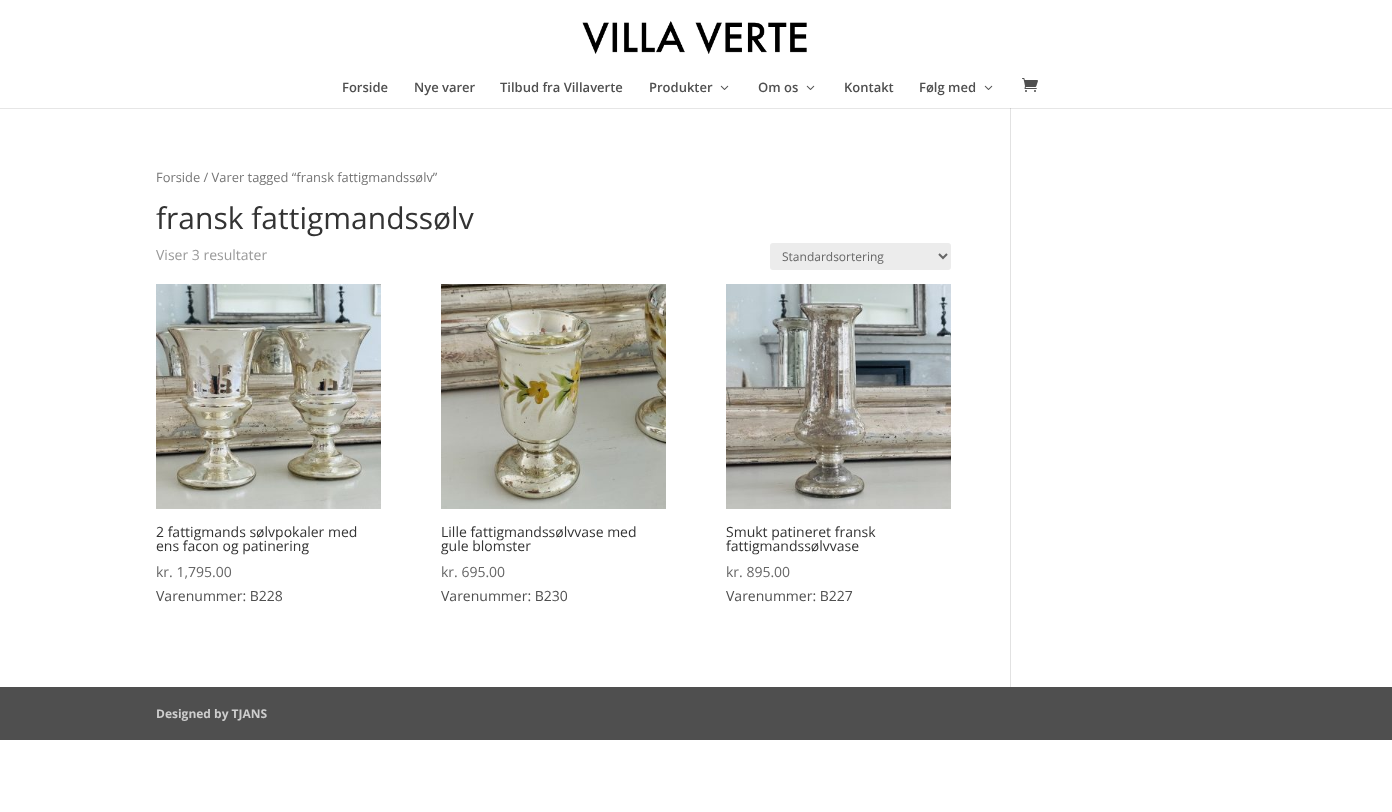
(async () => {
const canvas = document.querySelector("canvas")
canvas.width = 1392
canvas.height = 812
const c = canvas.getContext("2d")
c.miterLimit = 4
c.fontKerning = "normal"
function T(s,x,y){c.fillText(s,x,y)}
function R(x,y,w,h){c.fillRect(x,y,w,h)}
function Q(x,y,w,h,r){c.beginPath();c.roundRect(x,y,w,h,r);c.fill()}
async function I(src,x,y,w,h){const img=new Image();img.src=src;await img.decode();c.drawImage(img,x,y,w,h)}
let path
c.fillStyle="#fff"
R(0,0,1392,812)
c.fillStyle="#e6e6e6"
R(0,108,1392,1)
await I("1.png",582,21,225,33)
c.font="600 13px Open Sans"
c.fillStyle="#4f4f4f"
T("Forside",342,92)
T("Nye varer",414,92)
T("Tilbud fra Villaverte",500,92)
T("Produkter",649,92)
await I("2.png",720,85,9,5)
T("Om os",758,92)
await I("2.png",806,85,9,5)
T("Kontakt",844,92)
T("Følg med",919,92)
await I("2.png",984,85,9,5)
await I("3.png",1022,78,16,14)
c.font="12.9px Open Sans"
c.fillStyle="#767676"
T("Forside / Varer tagged “fransk fattigmandssølv”",156,182)
c.font="30px Open Sans"
c.fillStyle="#333"
T("fransk fattigmandssølv",156,229)
c.font="14px Open Sans"
c.fillStyle="#999"
T("Viser 3 resultater",156,260)
c.fillStyle="#ececec"
Q(770,243,181,27,3)
path = new Path2D("M939 254l4 4l4-4")
c.strokeStyle="#666"
c.lineWidth=2
c.stroke(path)
c.font="12px Open Sans"
c.fillStyle="#666"
T("Standardsortering",782,261)
await I("4.png",156,284,225,225)
c.font="14px Open Sans"
c.fillStyle="#333"
T("2 fattigmands sølvpokaler med",156,537)
T("ens facon og patinering",156,551)
c.fillStyle="#666"
T("kr. 1,795.00",156,577)
c.fillStyle="#4f4f4f"
T("Varenummer: B228",156,601)
await I("5.png",441,284,225,225)
c.fillStyle="#333"
T("Lille fattigmandssølvvase med",441,537)
T("gule blomster",441,551)
c.fillStyle="#666"
T("kr. 695.00",441,577)
c.fillStyle="#4f4f4f"
T("Varenummer: B230",441,601)
await I("6.png",726,284,225,225)
c.fillStyle="#333"
T("Smukt patineret fransk",726,537)
T("fattigmandssølvvase",726,551)
c.fillStyle="#666"
T("kr. 895.00",726,577)
c.fillStyle="#4f4f4f"
T("Varenummer: B227",726,601)
c.fillStyle="#e2e2e2"
R(1010,108,1,579)
c.fillStyle="#cbcbcb"
R(1010,108,1,1)
c.fillStyle="#4f4f4f"
R(0,687,1392,53)
c.font="bold 12px Open Sans"
c.fillStyle="#cecece"
T("Designed by TJANS",156,718)
})()
